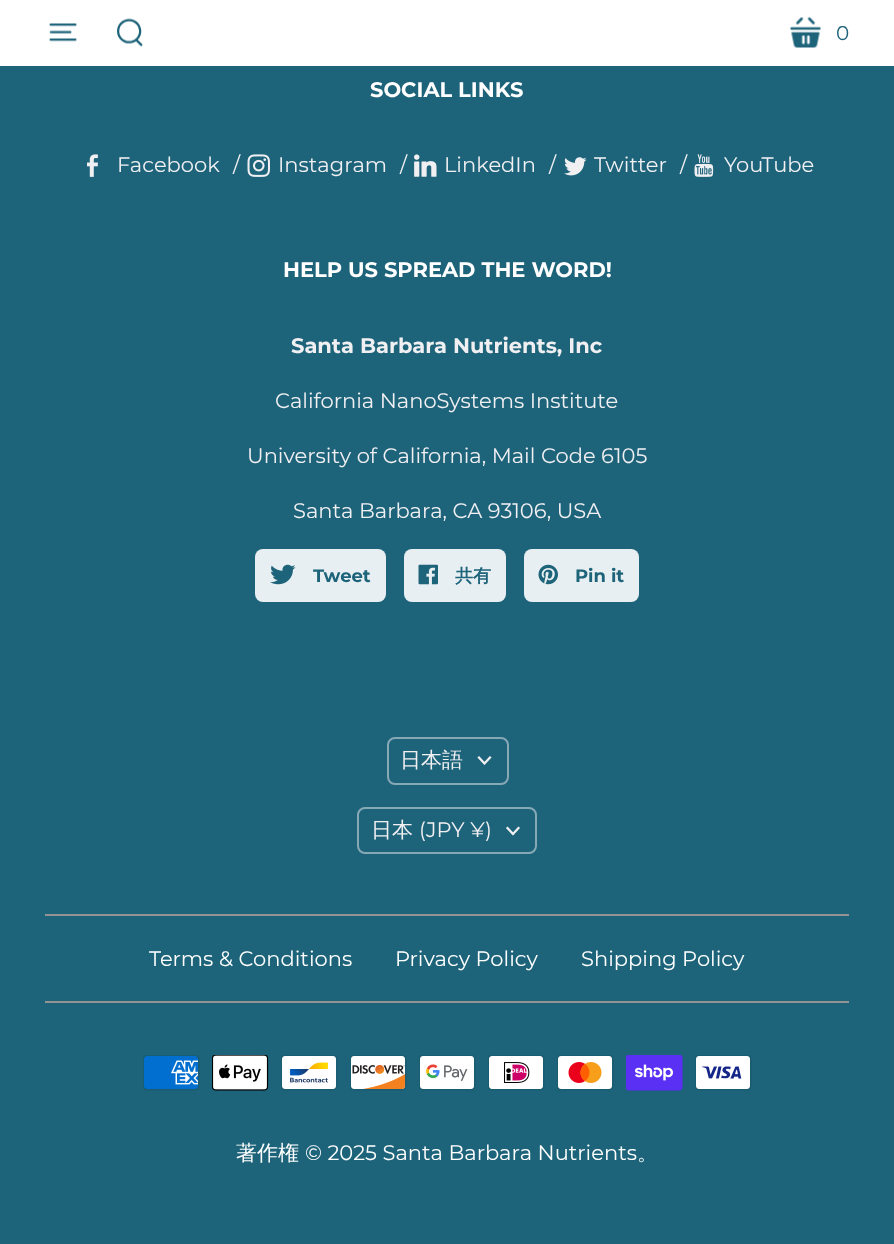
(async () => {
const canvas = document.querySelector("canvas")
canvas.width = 894
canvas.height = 1244
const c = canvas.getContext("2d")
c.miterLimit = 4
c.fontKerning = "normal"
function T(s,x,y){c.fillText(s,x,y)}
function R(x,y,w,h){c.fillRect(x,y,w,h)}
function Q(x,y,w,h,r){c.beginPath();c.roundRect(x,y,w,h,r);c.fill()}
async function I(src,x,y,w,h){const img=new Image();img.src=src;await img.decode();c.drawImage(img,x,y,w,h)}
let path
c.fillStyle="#1d637a"
R(0,0,894,1244)
c.fillStyle="#fff"
R(0,0,894,66)
await I("1.png",49,23,28,19)
await I("2.png",49,30,23,4)
await I("3.png",117,18,26,29)
await I("4.png",790,17,31,31)
c.font="20px Montserrat"
c.fillStyle="#1d637a"
T("0",836,40)
c.font="bold 21px Montserrat"
c.fillStyle="#fff"
T("SOCIAL LINKS",370,97)
await I("5.png",87,154,11,23)
c.font="21px Montserrat"
c.fillStyle="#f0eff2"
T("Facebook",117,172)
T("/",233,172)
await I("6.png",247,154,23,23)
T("Instagram",278,172)
T("/",400,172)
await I("7.png",414,154,23,23)
T("LinkedIn",444,172)
T("/",549,172)
await I("8.png",564,157,23,19)
T("Twitter",594,172)
T("/",680,172)
await I("9.png",694,154,20,23)
T("YouTube",724,172)
c.font="bold 21px Montserrat"
c.fillStyle="#fff"
T("HELP US SPREAD THE WORD!",283,277)
c.fillStyle="#f0eff2"
T("Santa Barbara Nutrients, Inc",291,353)
c.font="21px Montserrat"
T("California NanoSystems Institute",275,408)
T("University of California, Mail Code 6105",247,463)
T("Santa Barbara, CA 93106, USA",293,518)
c.fillStyle="#e8eff2"
Q(255,549,131,53,8)
await I("10.png",270,564,26,21)
c.font="bold 18px Montserrat"
c.fillStyle="#1d637a"
T("Tweet",313,582)
c.fillStyle="#e8eff2"
Q(404,549,102,53,8)
await I("11.png",418,564,20,21)
c.font="bold 18px WenQuanYi Zen Hei"
c.fillStyle="#1d637a"
T("共有",455,582)
c.fillStyle="#e8eff2"
Q(524,549,115,53,8)
await I("12.png",538,564,20,21)
c.font="bold 18px Montserrat"
c.fillStyle="#1d637a"
T("Pin it",575,582)
c.beginPath()
c.roundRect(388,738,120,46,7)
c.strokeStyle="#87a9b6"
c.lineWidth=2
c.stroke()
c.font="500 21px WenQuanYi Zen Hei"
c.fillStyle="#f0eff2"
T("日本語",400,767)
path = new Path2D("M484.5 763.5l5.5-6m-5.5 6l-5.5-6")
c.strokeStyle="#f0eff2"
c.lineWidth=2.3
c.lineCap="square"
c.stroke(path)
c.beginPath()
c.roundRect(358,808,178,45,7)
c.strokeStyle="#87a9b6"
c.lineWidth=2
c.stroke()
T("日本",371,837)
c.font="21px Montserrat"
T("(JPY ¥)",419,837)
path = new Path2D("M513 834l5.5-6m-5.5 6l-5.5-6")
c.strokeStyle="#f0eff2"
c.lineWidth=2.3
c.stroke(path)
c.fillStyle="#939393"
R(45,914,804,2)
R(45,1001,804,2)
c.fillStyle="#fff"
T("Terms & Conditions",149,966)
T("Privacy Policy",395,966)
T("Shipping Policy",581,966)
await I("13.png",143,1055,57,36)
await I("14.png",212,1055,57,36)
await I("15.png",281,1055,57,36)
await I("16.png",350,1055,57,36)
await I("17.png",419,1055,57,36)
await I("18.png",488,1055,57,36)
await I("19.png",557,1055,57,36)
await I("20.png",626,1055,57,36)
await I("21.png",695,1055,57,36)
c.font="500 21px WenQuanYi Zen Hei"
T("著作権",236,1160)
c.font="21px Montserrat"
T("© 2025 Santa Barbara Nutrients",305,1160)
c.font="500 21px WenQuanYi Zen Hei"
T("。",637,1160)
})()
